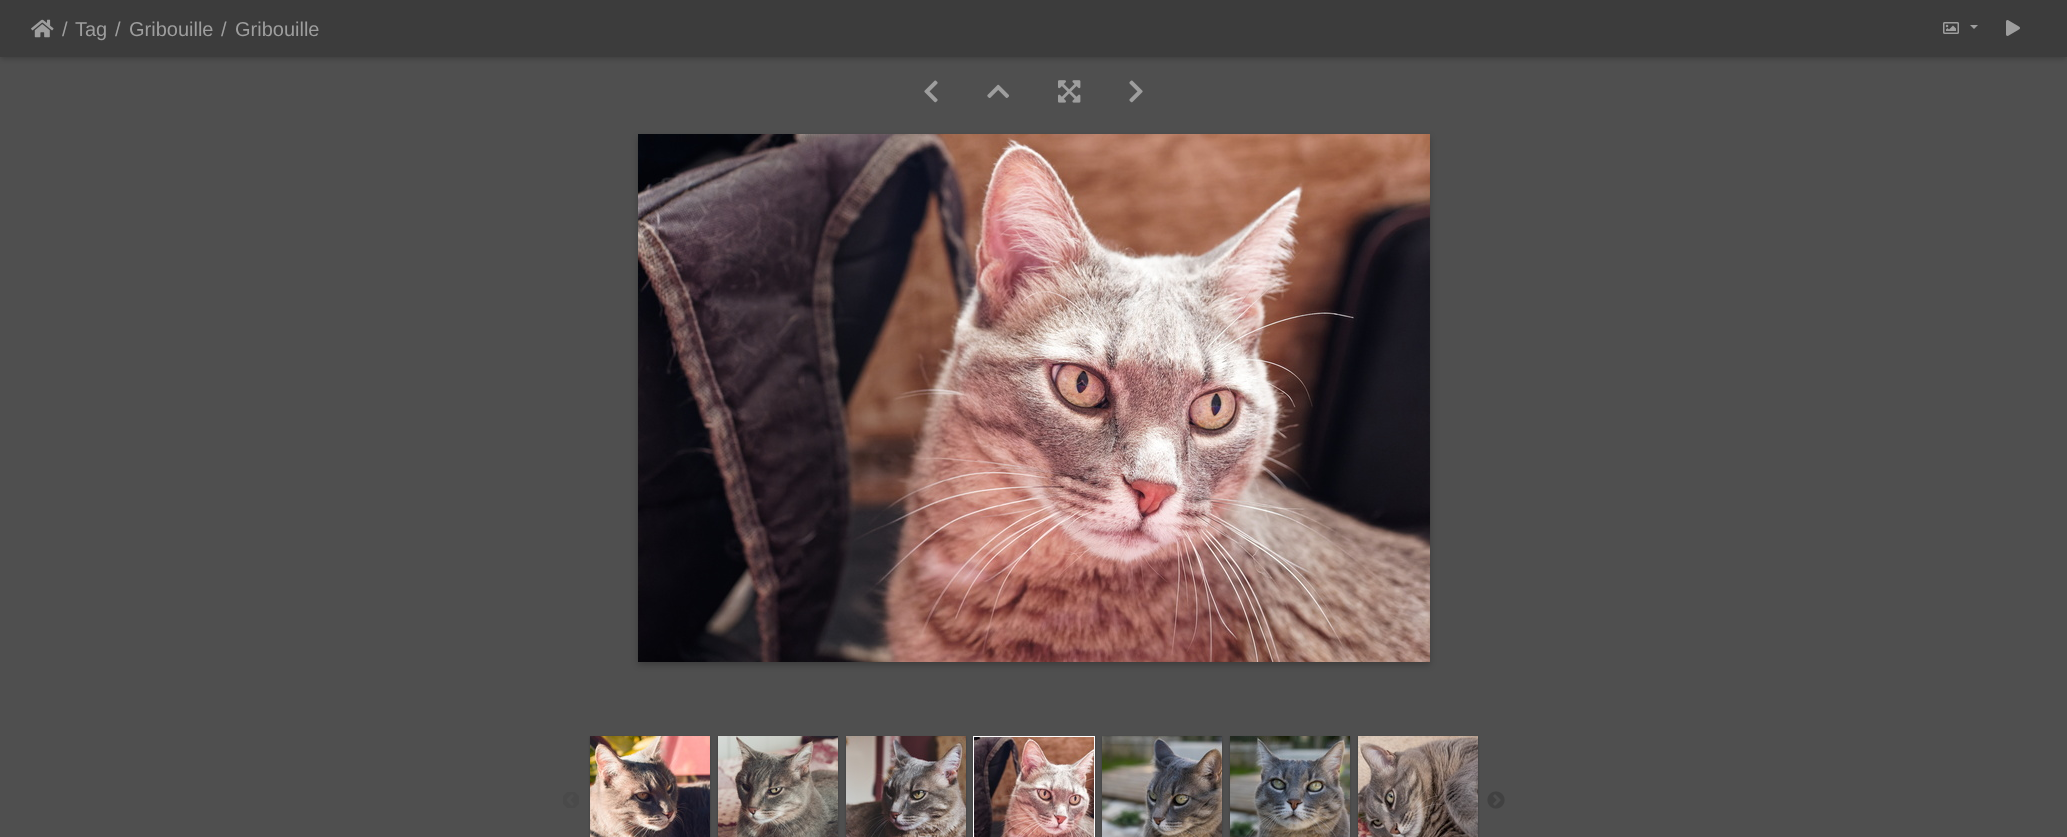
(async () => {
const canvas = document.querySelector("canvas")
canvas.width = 2067
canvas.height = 837
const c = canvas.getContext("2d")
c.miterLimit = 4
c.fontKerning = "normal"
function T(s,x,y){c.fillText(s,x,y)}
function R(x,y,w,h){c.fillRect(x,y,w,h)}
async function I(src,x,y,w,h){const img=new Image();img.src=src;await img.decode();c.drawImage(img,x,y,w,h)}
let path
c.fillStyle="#4f4f4f"
R(0,0,2067,837)
c.fillStyle="#00000033"
c.filter="blur(2.5px)"
c.beginPath()
c.rect(1,4,2065,55)
c.fill()
c.filter="none"
c.fillStyle="#3c3c3c"
R(0,0,2067,57)
await I("1.png",31,19,23,19)
c.font="20px Liberation Sans"
c.fillStyle="#9e9e9e"
T("/",62,36)
T("Tag",75,36)
T("/",115,36)
T("Gribouille",129,36)
T("/",221,36)
T("Gribouille",235,36)
await I("2.png",1943,22,16,12)
path = new Path2D("M1970 25h8l-4 4z")
c.fill(path)
await I("3.png",2006,20,14,16)
await I("4.png",924,80,14,23)
await I("5.png",987,84,22,14)
await I("6.png",1058,80,23,23)
await I("7.png",1129,80,14,23)
c.fillStyle="#0000003b"
c.filter="blur(3px)"
c.beginPath()
c.rect(638,137,792,528)
c.fill()
c.filter="none"
await I("8.png",638,134,792,528)
await I("9.png",563,792,16,16)
c.fillStyle="#0000003d"
c.filter="blur(1px)"
c.beginPath()
c.rect(590,737,120,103)
c.fill()
c.filter="none"
await I("10.png",590,736,120,101)
c.filter="blur(1px)"
c.beginPath()
c.rect(718,737,120,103)
c.fill()
c.filter="none"
await I("11.png",718,736,120,101)
c.filter="blur(1px)"
c.beginPath()
c.rect(846,737,120,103)
c.fill()
c.filter="none"
await I("12.png",846,736,120,101)
c.filter="blur(1px)"
c.beginPath()
c.rect(973,737,122,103)
c.fill()
c.filter="none"
c.strokeStyle="#fff"
c.strokeRect(973.5,736.5,121,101)
await I("13.png",974,737,120,100)
c.filter="blur(1px)"
c.beginPath()
c.rect(1102,737,120,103)
c.fill()
c.filter="none"
await I("14.png",1102,736,120,101)
c.filter="blur(1px)"
c.beginPath()
c.rect(1230,737,120,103)
c.fill()
c.filter="none"
await I("15.png",1230,736,120,101)
c.filter="blur(1px)"
c.beginPath()
c.rect(1358,737,120,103)
c.fill()
c.filter="none"
await I("16.png",1358,736,120,101)
await I("17.png",1487,791,18,18)
})()
